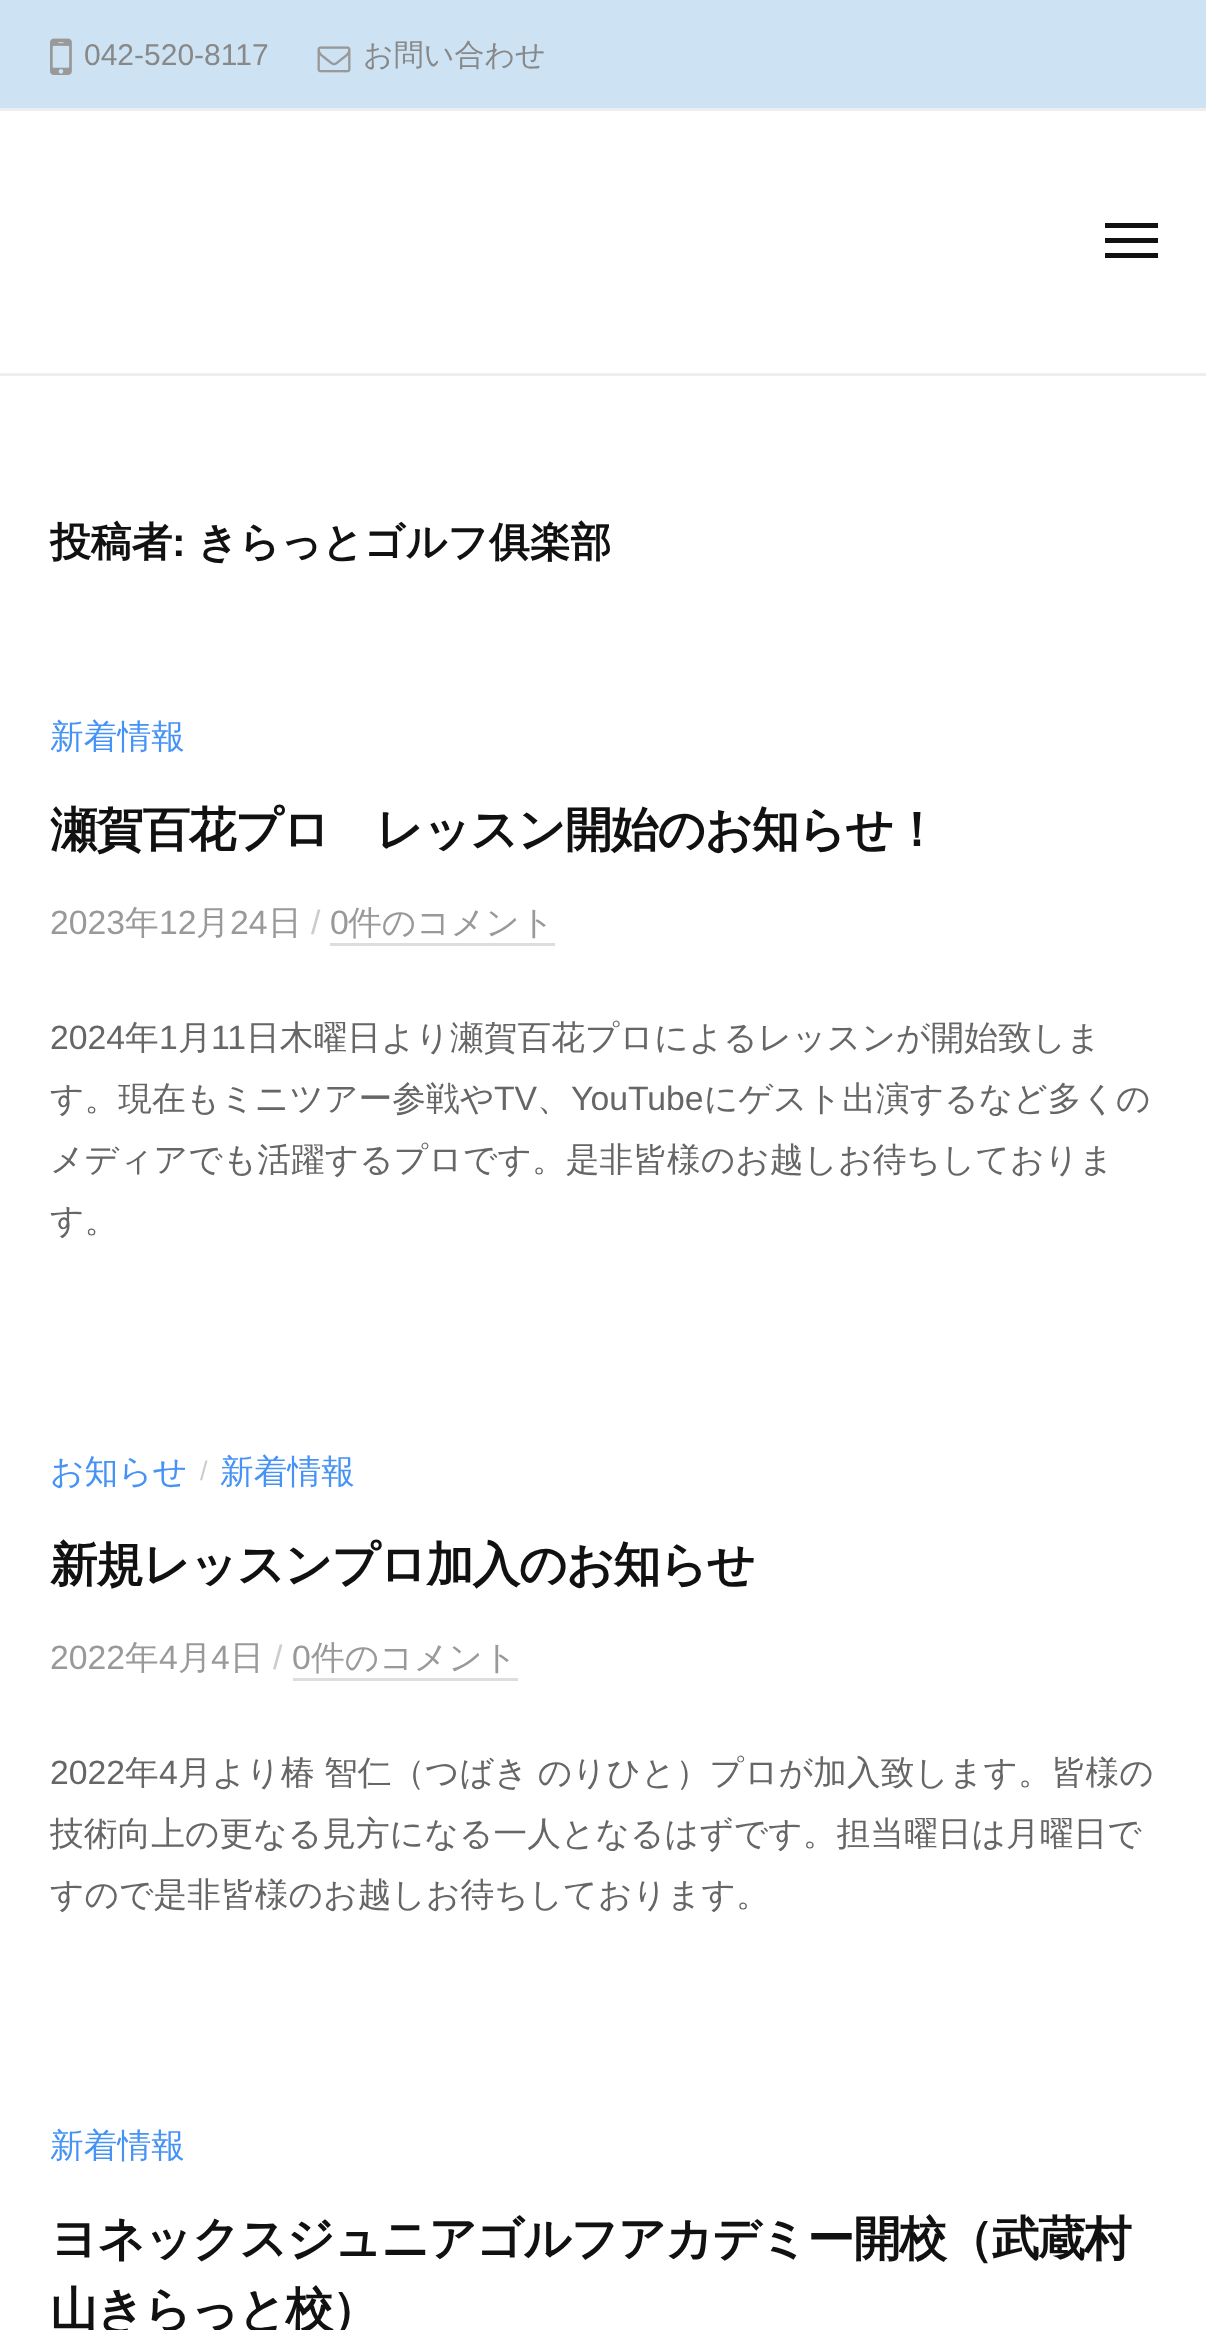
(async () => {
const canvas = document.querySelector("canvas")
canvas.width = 1206
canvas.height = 2330
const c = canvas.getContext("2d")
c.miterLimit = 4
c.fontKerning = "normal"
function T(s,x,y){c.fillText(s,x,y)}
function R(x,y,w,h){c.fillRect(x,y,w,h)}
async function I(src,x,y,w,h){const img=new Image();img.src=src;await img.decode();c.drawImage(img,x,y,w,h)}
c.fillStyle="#fff"
R(0,0,1206,2330)
c.fillStyle="#eee"
R(0,373,1206,3)
c.fillStyle="#cde3f4"
R(0,0,1206,108)
c.fillStyle="#eee"
R(0,108,1206,3)
await I("1.png",50,38,22,37)
c.font="30px Liberation Sans"
c.fillStyle="#888"
T("042-520-8117",84,65)
await I("2.png",317,46,34,27)
c.font="500 30px WenQuanYi Zen Hei"
T("お問い合わせ",363,65)
c.fillStyle="#111"
R(1105,238,53,5)
R(1105,223,53,5)
R(1105,253,53,5)
c.font="bold 40.75px WenQuanYi Zen Hei"
T("投稿者",50,556)
c.font="bold 40.75px Liberation Sans"
T(":",172,556)
c.font="bold 40.75px WenQuanYi Zen Hei"
T("きらっとゴルフ俱楽部",197,556)
c.font="500 33.75px WenQuanYi Zen Hei"
c.fillStyle="#4693f5"
T("新着情報",50,748)
c.letterSpacing="-1.4px"
c.font="bold 47.6px WenQuanYi Zen Hei"
c.fillStyle="#111"
T("瀬賀百花プロ　レッスン開始のお知らせ！",50,846)
c.letterSpacing="0px"
c.font="33.75px Liberation Sans"
c.fillStyle="#999"
T("2023",50,934)
c.font="500 33.75px WenQuanYi Zen Hei"
T("年",125,934)
c.font="33.75px Liberation Sans"
T("12",159,934)
c.font="500 33.75px WenQuanYi Zen Hei"
T("月",196,934)
c.font="33.75px Liberation Sans"
T("24",230,934)
c.font="500 33.75px WenQuanYi Zen Hei"
T("日",268,934)
c.font="33.75px Liberation Sans"
c.fillStyle="#ccc"
T("/",311,934)
c.fillStyle="#999"
T("0",330,934)
c.font="500 33.75px WenQuanYi Zen Hei"
T("件のコメント",348,934)
c.fillStyle="#ddd"
R(330,943,225,3)
c.font="33.75px Liberation Sans"
c.fillStyle="#666"
T("2024",50,1049)
c.font="500 33.75px WenQuanYi Zen Hei"
T("年",125,1049)
c.font="33.75px Liberation Sans"
T("1",159,1049)
c.font="500 33.75px WenQuanYi Zen Hei"
T("月",178,1049)
c.font="33.75px Liberation Sans"
T("11",211,1049)
c.font="500 33.75px WenQuanYi Zen Hei"
T("日木曜日より瀬賀百花プロによるレッスンが開始致しま",246,1049)
T("す。現在もミニツアー参戦や",50,1110)
c.font="33.75px Liberation Sans"
T("TV",494,1110)
T("YouTube",571,1110)
c.font="500 33.75px WenQuanYi Zen Hei"
T("にゲスト出演するなど多くの",704,1110)
T("、",537,1110)
T("メディアでも活躍するプロです。是非皆様のお越しお待ちしておりま",50,1171)
T("す。",50,1232)
c.fillStyle="#4693f5"
T("お知らせ",50,1483)
c.font="27px Liberation Sans"
c.fillStyle="#ccc"
T("/",200,1480)
c.font="500 33.75px WenQuanYi Zen Hei"
c.fillStyle="#4693f5"
T("新着情報",220,1483)
c.letterSpacing="-1.4px"
c.font="bold 47.6px WenQuanYi Zen Hei"
c.fillStyle="#111"
T("新規レッスンプロ加入のお知らせ",50,1581)
c.letterSpacing="0px"
c.font="33.75px Liberation Sans"
c.fillStyle="#999"
T("2022",50,1669)
c.font="500 33.75px WenQuanYi Zen Hei"
T("年",125,1669)
c.font="33.75px Liberation Sans"
T("4",159,1669)
c.font="500 33.75px WenQuanYi Zen Hei"
T("月",178,1669)
c.font="33.75px Liberation Sans"
T("4",211,1669)
c.font="500 33.75px WenQuanYi Zen Hei"
T("日",230,1669)
c.font="33.75px Liberation Sans"
c.fillStyle="#ccc"
T("/",273,1669)
c.fillStyle="#999"
T("0",292,1669)
c.font="500 33.75px WenQuanYi Zen Hei"
T("件のコメント",311,1669)
c.fillStyle="#ddd"
R(293,1678,225,3)
c.font="33.75px Liberation Sans"
c.fillStyle="#666"
T("2022",50,1784)
c.font="500 33.75px WenQuanYi Zen Hei"
T("年",125,1784)
c.font="33.75px Liberation Sans"
T("4",159,1784)
c.wordSpacing="-1px"
c.font="500 33.75px WenQuanYi Zen Hei"
T("月より椿 智仁（つばき のりひと）プロが加入致します。皆様の",178,1784)
c.wordSpacing="0px"
T("技術向上の更なる見方になる一人となるはずです。担当曜日は月曜日で",50,1845)
T("すので是非皆様のお越しお待ちしております。",50,1906)
c.fillStyle="#4693f5"
T("新着情報",50,2157)
c.letterSpacing="-1.4px"
c.font="bold 47.6px WenQuanYi Zen Hei"
c.fillStyle="#111"
T("ヨネックスジュニアゴルフアカデミー開校（武蔵村",50,2255)
T("山きらっと校）",50,2326)
})()
